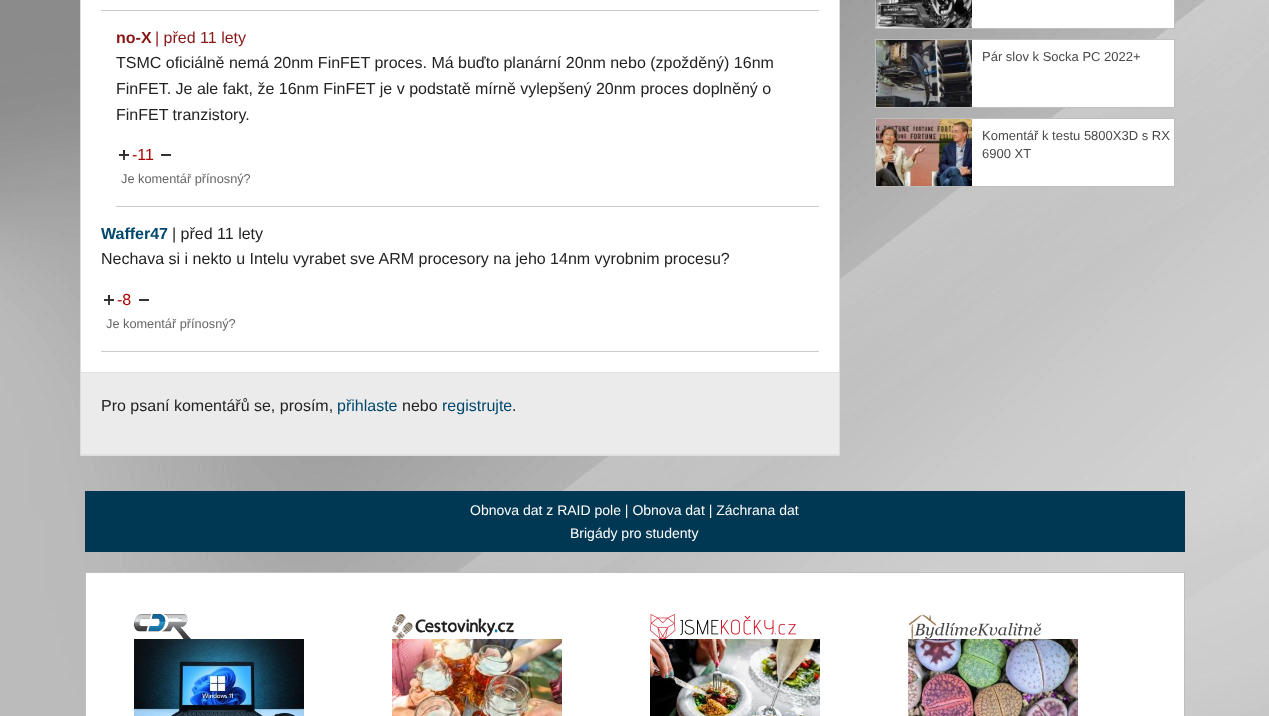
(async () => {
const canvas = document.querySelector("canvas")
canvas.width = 1269
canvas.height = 716
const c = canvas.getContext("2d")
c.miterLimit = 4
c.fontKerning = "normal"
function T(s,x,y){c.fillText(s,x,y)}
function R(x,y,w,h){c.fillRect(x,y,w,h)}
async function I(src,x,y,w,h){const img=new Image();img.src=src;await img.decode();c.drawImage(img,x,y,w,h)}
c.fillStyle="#fff"
R(0,0,1269,716)
await I("1.png",0,0,1269,716)
R(81,0,758,372)
c.strokeStyle="#ddd"
c.strokeRect(80.5,-.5,759,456)
c.fillStyle="#ccc"
R(101,10,718,1)
R(116,206,703,1)
c.font="bold 16px Liberation Sans"
c.fillStyle="#881616"
T("no-X",116,43)
c.font="16px Liberation Sans"
T("| před 11 lety",155,43)
c.fillStyle="#232323"
T("TSMC oficiálně nemá 20nm FinFET proces. Má buďto planární 20nm nebo (zpožděný) 16nm",116,68)
T("FinFET. Je ale fakt, že 16nm FinFET je v podstatě mírně vylepšený 20nm proces doplněný o",116,94)
T("FinFET tranzistory.",116,120)
await I("2.png",119,150,10,10)
c.fillStyle="#a00"
T("-11",132,160)
await I("3.png",161,154,10,2)
c.font="12.75px Liberation Sans"
c.fillStyle="#666"
T("Je komentář přínosný?",121,183)
c.fillStyle="#ccc"
R(101,351,718,1)
c.font="bold 16px Liberation Sans"
c.fillStyle="#00486c"
T("Waffer47",101,239)
c.font="16px Liberation Sans"
c.fillStyle="#232323"
T("| před 11 lety",172,239)
T("Nechava si i nekto u Intelu vyrabet sve ARM procesory na jeho 14nm vyrobnim procesu?",101,264)
await I("2.png",104,295,10,10)
c.fillStyle="#a00"
T("-8",117,305)
await I("3.png",139,299,10,2)
c.font="12.75px Liberation Sans"
c.fillStyle="#666"
T("Je komentář přínosný?",106,328)
c.fillStyle="#ebebeb"
R(81,373,758,81)
c.fillStyle="#e1e1e1"
R(81,372,758,1)
R(81,454,758,1)
c.font="16px Liberation Sans"
c.fillStyle="#232323"
T("Pro psaní komentářů se, prosím,",101,411)
c.fillStyle="#00486c"
T("přihlaste",337,411)
c.fillStyle="#232323"
T("nebo",402,411)
c.fillStyle="#00486c"
T("registrujte",442,411)
c.fillStyle="#232323"
T(".",512,411)
c.fillStyle="#fff"
R(972,0,202,28)
c.strokeStyle="#bebebe"
c.strokeRect(875.5,-.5,299,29)
await I("4.png",876,0,96,28)
R(972,40,202,67)
c.strokeRect(875.5,39.5,299,68)
await I("5.png",876,40,96,67)
c.font="13px Liberation Sans"
c.fillStyle="#494949"
T("Pár slov k Socka PC 2022+",982,61)
c.fillStyle="#fff"
R(972,119,202,67)
c.strokeRect(875.5,118.5,299,68)
await I("6.png",876,119,96,67)
c.fillStyle="#494949"
T("Komentář k testu 5800X3D s RX",982,140)
T("6900 XT",982,158)
c.fillStyle="#003752"
R(85,491,1100,61)
c.font="14px Liberation Sans"
c.fillStyle="#fff"
T("Obnova dat z RAID pole | Obnova dat | Záchrana dat",470,515)
T("Brigády pro studenty",570,538)
c.beginPath()
c.rect(85.5,572.5,1099,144)
c.fill()
c.stroke()
await I("7.png",134,614,57,25)
await I("8.png",134,639,170,77)
await I("9.png",392,614,122,25)
await I("10.png",392,639,170,77)
await I("11.png",650,614,146,25)
await I("12.png",650,639,170,77)
await I("13.png",908,614,134,25)
await I("14.png",908,639,170,77)
})()
